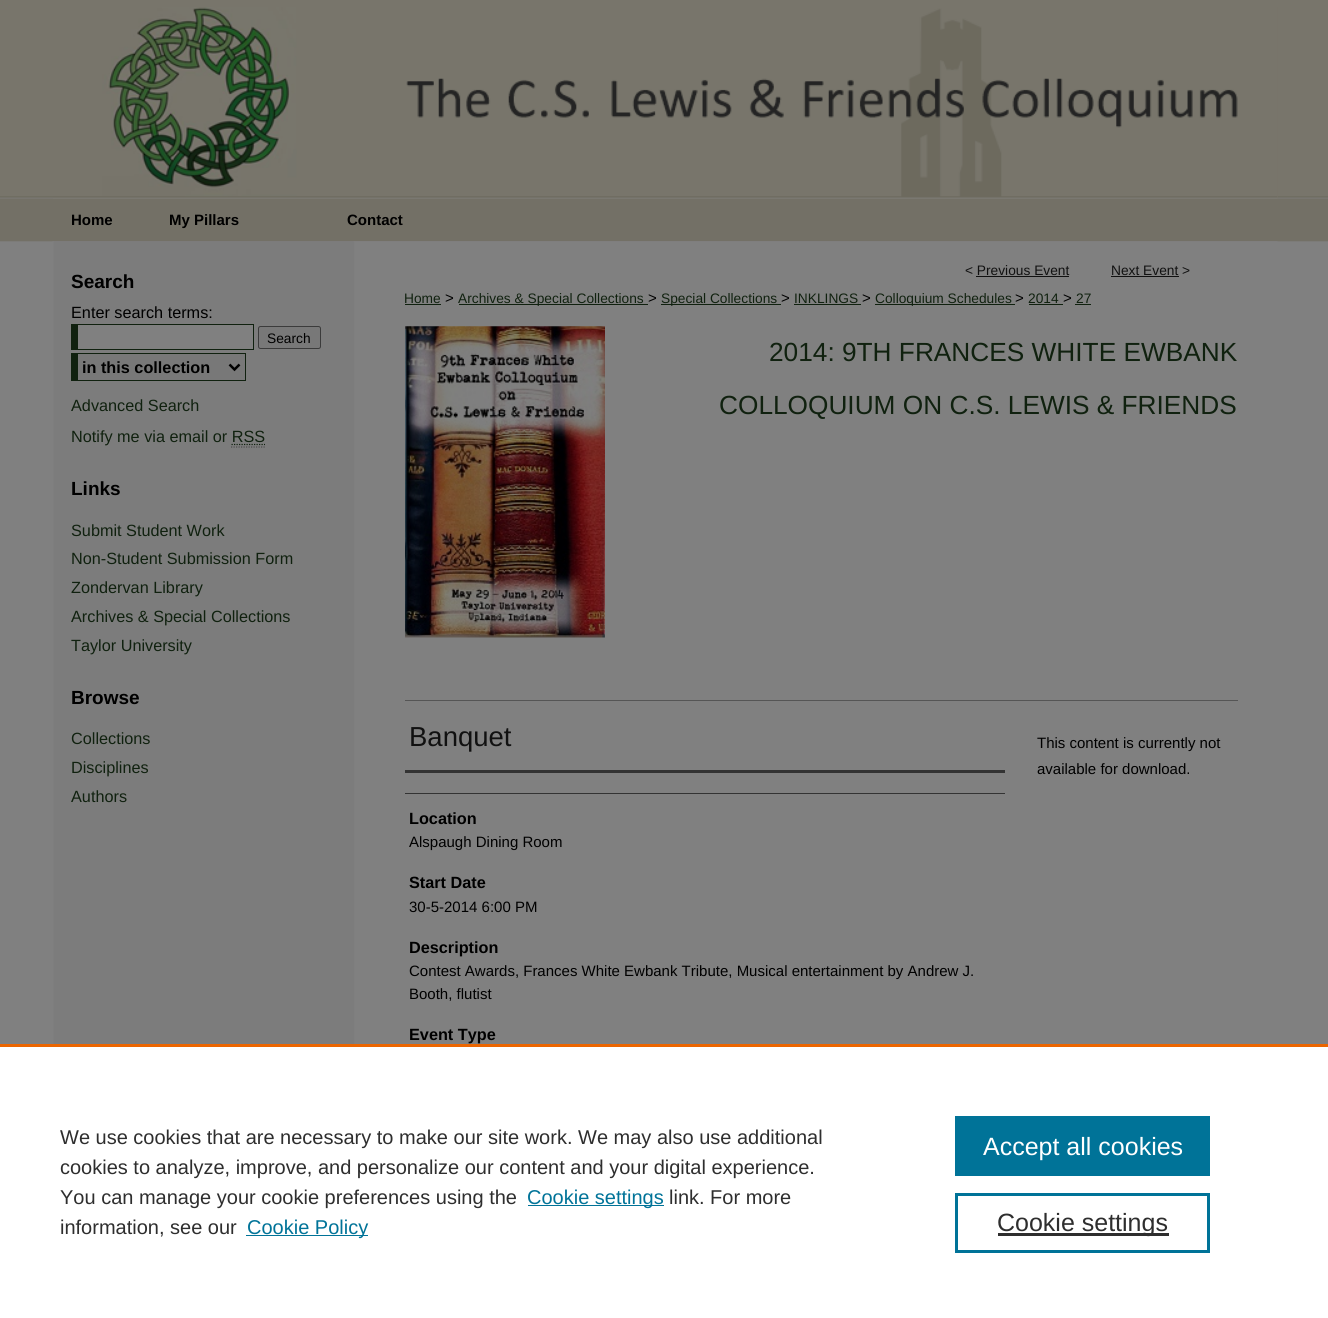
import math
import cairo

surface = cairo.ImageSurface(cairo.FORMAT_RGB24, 1328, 1318)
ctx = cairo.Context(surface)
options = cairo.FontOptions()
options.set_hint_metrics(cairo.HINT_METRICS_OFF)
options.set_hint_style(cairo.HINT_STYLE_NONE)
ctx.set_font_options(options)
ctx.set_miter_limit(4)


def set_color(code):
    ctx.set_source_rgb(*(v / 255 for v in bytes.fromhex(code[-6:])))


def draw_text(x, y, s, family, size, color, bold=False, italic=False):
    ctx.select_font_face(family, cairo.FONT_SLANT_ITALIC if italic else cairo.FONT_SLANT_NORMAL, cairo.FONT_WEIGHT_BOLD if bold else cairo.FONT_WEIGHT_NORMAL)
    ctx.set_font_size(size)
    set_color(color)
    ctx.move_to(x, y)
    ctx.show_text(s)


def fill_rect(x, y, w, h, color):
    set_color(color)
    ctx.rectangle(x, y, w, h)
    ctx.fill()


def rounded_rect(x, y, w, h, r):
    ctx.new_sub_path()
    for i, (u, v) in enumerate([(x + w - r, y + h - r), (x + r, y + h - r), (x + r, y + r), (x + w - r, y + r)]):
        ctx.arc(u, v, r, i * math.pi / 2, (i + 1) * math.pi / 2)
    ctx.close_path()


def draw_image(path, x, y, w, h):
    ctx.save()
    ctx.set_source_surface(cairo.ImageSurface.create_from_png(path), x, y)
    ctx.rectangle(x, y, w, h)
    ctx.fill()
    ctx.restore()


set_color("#808080")
ctx.paint()
draw_image("assets/img1.png", 0, 0, 1328, 242)
fill_rect(53, 196, 1225, 3, "#78756b")
draw_image("assets/img2.png", 53, 7, 1225, 192)
draw_text(71, 225, "Home", "Liberation Sans", 15, "#000000", bold=True)
draw_text(169, 225, "My Pillars", "Liberation Sans", 15, "#000000", bold=True)
draw_text(347, 225, "Contact", "Liberation Sans", 15, "#000000", bold=True)
draw_image("assets/img3.png", 52, 241, 1226, 803)
draw_text(71, 288, "Search", "Liberation Sans", 19, "#000000", bold=True)
draw_text(71, 318, "Enter search terms:", "Liberation Sans", 16.25, "#000000")
fill_rect(78, 325, 175, 24, "#808080")
fill_rect(71, 324, 183, 1, "#10210f")
fill_rect(253, 324, 1, 26, "#10210f")
fill_rect(71, 349, 183, 1, "#10210f")
fill_rect(71, 324, 7, 26, "#10210f")
set_color("#787878")
rounded_rect(258.5, 326.5, 62, 22, 2)
ctx.fill_preserve()
set_color("#3b3b3b")
ctx.set_line_width(1)
ctx.stroke()
draw_text(267, 343, "Search", "Liberation Sans", 13.75, "#000000")
fill_rect(78, 354, 167, 26, "#787878")
fill_rect(71, 353, 175, 1, "#10210f")
fill_rect(245, 353, 1, 28, "#10210f")
fill_rect(71, 380, 175, 1, "#10210f")
fill_rect(71, 353, 7, 28, "#10210f")
ctx.new_path()
ctx.move_to(229.5, 364.5)
ctx.line_to(234.5, 369.5)
ctx.line_to(239.5, 364.5)
set_color("#000000")
ctx.set_line_width(2.5)
ctx.stroke()
draw_text(82, 373, "in this collection", "Liberation Sans", 16.25, "#000000", bold=True)
draw_text(71, 411, "Advanced Search", "Liberation Sans", 16.25, "#10210f")
draw_text(71, 442, "Notify me via email or RSS", "Liberation Sans", 16.25, "#10210f")
ctx.new_path()
ctx.move_to(231.5, 444.5)
ctx.line_to(265, 444.5)
ctx.set_line_width(1.2)
ctx.set_dash([1.25, 1.25])
ctx.stroke()
ctx.new_path()
ctx.move_to(231, 447)
ctx.line_to(265, 447)
set_color("#4d4d4d")
ctx.stroke()
draw_text(71, 495, "Links", "Liberation Sans", 19, "#000000", bold=True)
draw_text(71, 536, "Submit Student Work", "Liberation Sans", 16.25, "#10210f")
draw_text(71, 564, "Non-Student Submission Form", "Liberation Sans", 16.25, "#10210f")
draw_text(71, 593, "Zondervan Library", "Liberation Sans", 16.25, "#10210f")
draw_text(71, 622, "Archives & Special Collections", "Liberation Sans", 16.25, "#10210f")
draw_text(71, 651, "Taylor University", "Liberation Sans", 16.25, "#10210f")
draw_text(71, 704, "Browse", "Liberation Sans", 19, "#000000", bold=True)
draw_text(71, 744, "Collections", "Liberation Sans", 16.25, "#10210f")
draw_text(71, 773, "Disciplines", "Liberation Sans", 16.25, "#10210f")
draw_text(71, 802, "Authors", "Liberation Sans", 16.25, "#10210f")
draw_text(965, 275, "< Previous Event", "Liberation Sans", 13.75, "#111111")
fill_rect(976, 276, 93, 1, "#111111")
draw_text(1111, 275, "Next Event >", "Liberation Sans", 13.75, "#111111")
fill_rect(1111, 276, 68, 1, "#111111")
draw_text(404, 303, "Home", "Liberation Sans", 13.75, "#10210f")
fill_rect(405, 304, 36, 1, "#10210f")
draw_text(445, 303, ">", "Liberation Sans", 15, "#000000")
fill_rect(459, 304, 189, 1, "#10210f")
draw_text(458, 303, "Archives & Special Collections", "Liberation Sans", 13.75, "#10210f")
draw_text(648, 303, ">", "Liberation Sans", 15, "#000000")
fill_rect(661, 304, 120, 1, "#10210f")
draw_text(661, 303, "Special Collections", "Liberation Sans", 13.75, "#10210f")
draw_text(781, 303, ">", "Liberation Sans", 15, "#000000")
draw_text(794, 303, "INKLINGS", "Liberation Sans", 13.75, "#10210f")
fill_rect(794, 304, 67, 1, "#10210f")
draw_text(862, 303, ">", "Liberation Sans", 15, "#000000")
fill_rect(875, 304, 140, 1, "#10210f")
draw_text(875, 303, "Colloquium Schedules", "Liberation Sans", 13.75, "#10210f")
draw_text(1015, 303, ">", "Liberation Sans", 15, "#000000")
draw_text(1028, 303, "2014", "Liberation Sans", 13.75, "#10210f")
fill_rect(1029, 304, 34, 1, "#10210f")
draw_text(1063, 303, ">", "Liberation Sans", 15, "#000000")
draw_text(1076, 303, "27", "Liberation Sans", 13.75, "#10210f")
fill_rect(1075, 304, 16, 1, "#10210f")
draw_image("assets/img4.png", 405, 326, 200, 312)
draw_text(769, 361, "2014: 9TH FRANCES WHITE EWBANK", "Liberation Sans", 26.25, "#10210f")
draw_text(719, 414, "COLLOQUIUM ON C.S. LEWIS & FRIENDS", "Liberation Sans", 26.25, "#10210f")
fill_rect(405, 700, 833, 1, "#555555")
draw_text(409, 746, "Banquet", "Liberation Sans", 27.5, "#111111")
fill_rect(405, 770, 600, 3, "#333333")
fill_rect(405, 793, 600, 1, "#333333")
draw_text(409, 824, "Location", "Liberation Sans", 16.25, "#000000", bold=True)
draw_text(409, 847, "Alspaugh Dining Room", "Liberation Sans", 15, "#000000")
draw_text(409, 888, "Start Date", "Liberation Sans", 16.25, "#000000", bold=True)
draw_text(409, 912, "30-5-2014 6:00 PM", "Liberation Sans", 15, "#000000")
draw_text(409, 953, "Description", "Liberation Sans", 16.25, "#000000", bold=True)
draw_text(409, 976, "Contest Awards, Frances White Ewbank Tribute, Musical entertainment by Andrew J.", "Liberation Sans", 15, "#000000")
draw_text(409, 999, "Booth, flutist", "Liberation Sans", 15, "#000000")
draw_text(409, 1040, "Event Type", "Liberation Sans", 16.25, "#000000", bold=True)
draw_text(1037, 748, "This content is currently not", "Liberation Sans", 15, "#000000")
draw_text(1037, 774, "available for download.", "Liberation Sans", 15, "#000000")
fill_rect(0, 1047, 1328, 271, "#ffffff")
fill_rect(0, 1044, 1328, 3, "#eb6500")
draw_text(60, 1144, "We use cookies that are necessary to make our site work. We may also use additional", "Liberation Sans", 20, "#2e2e2e")
draw_text(60, 1174, "cookies to analyze, improve, and personalize our content and your digital experience.", "Liberation Sans", 20, "#2e2e2e")
draw_text(60, 1204, "You can manage your cookie preferences using the", "Liberation Sans", 20, "#2e2e2e")
fill_rect(528, 1205, 136, 1, "#007398")
draw_text(527, 1204, "Cookie settings", "Liberation Sans", 20, "#007398")
draw_text(669, 1204, "link. For more", "Liberation Sans", 20, "#2e2e2e")
draw_text(60, 1234, "information, see our", "Liberation Sans", 20, "#2e2e2e")
fill_rect(246, 1235, 122, 1, "#007398")
draw_text(247, 1234, "Cookie Policy", "Liberation Sans", 20, "#007398")
fill_rect(955, 1116, 255, 60, "#007398")
draw_text(983, 1155, "Accept all cookies", "Liberation Sans", 25, "#ffffff")
ctx.rectangle(956.5, 1194.5, 252, 57)
set_color("#007398")
ctx.set_line_width(3)
ctx.set_dash([])
ctx.stroke()
fill_rect(998, 1233, 171, 3, "#2e2e2e")
draw_text(997, 1231, "Cookie settings", "Liberation Sans", 25, "#2e2e2e")
surface.write_to_png("output.png")
